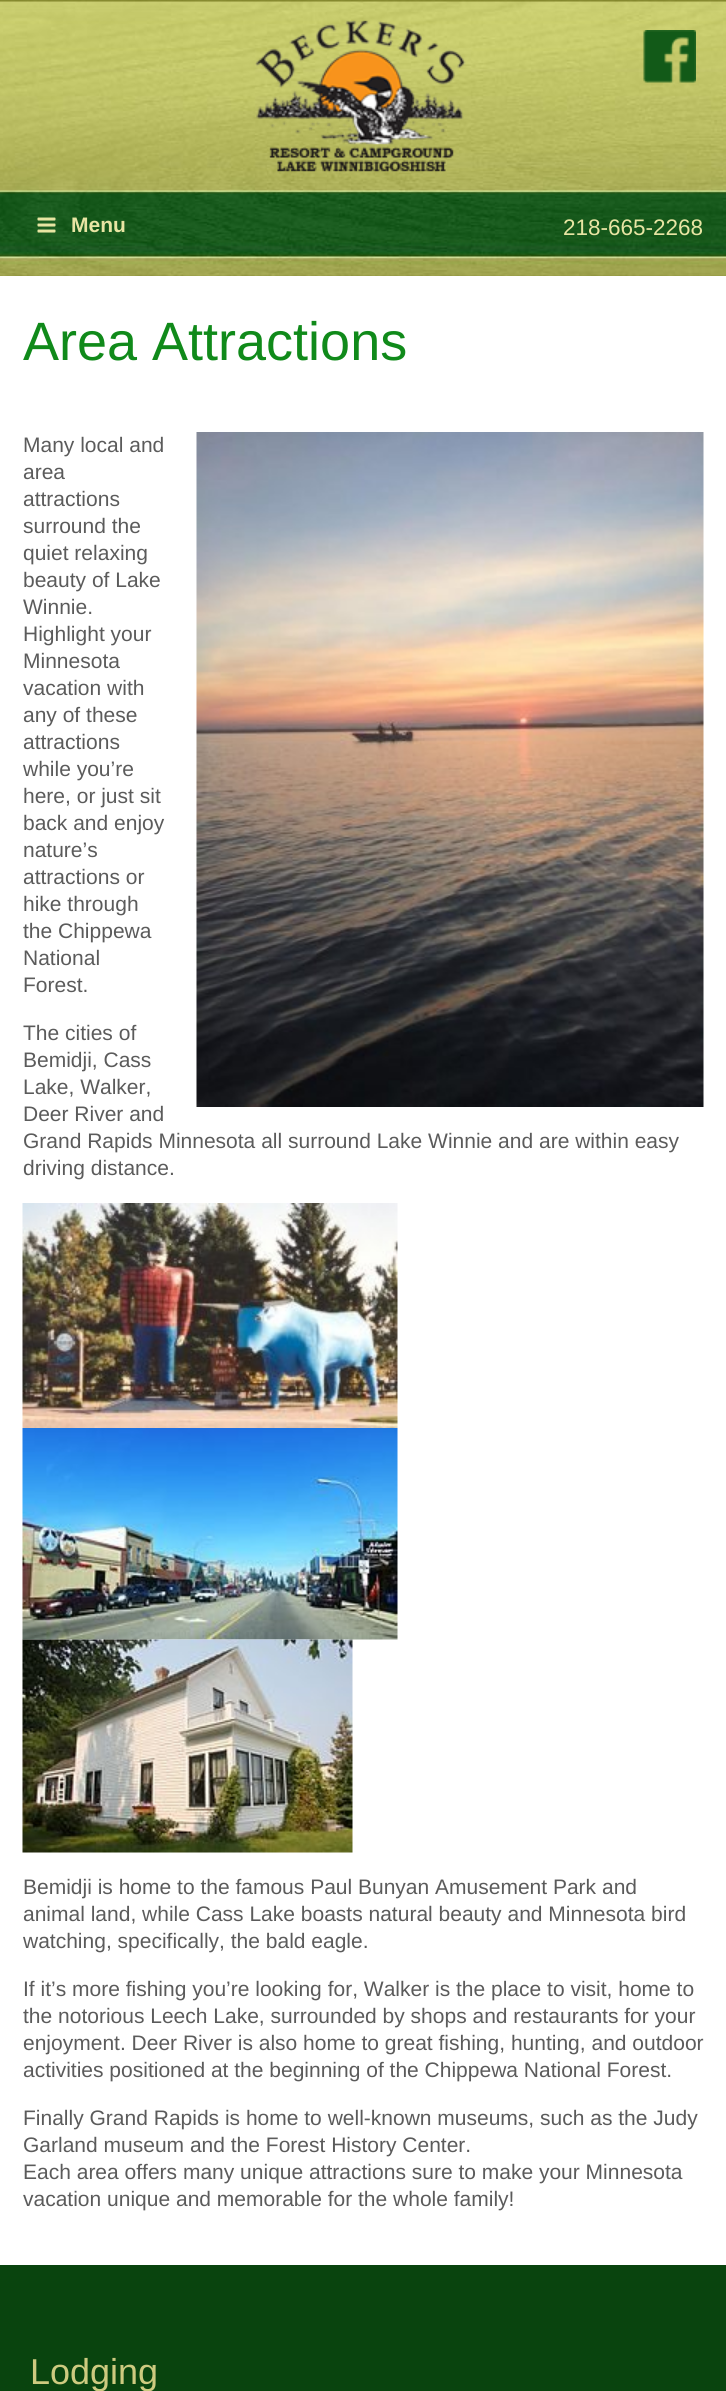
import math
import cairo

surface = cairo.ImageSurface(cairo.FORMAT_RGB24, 726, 2391)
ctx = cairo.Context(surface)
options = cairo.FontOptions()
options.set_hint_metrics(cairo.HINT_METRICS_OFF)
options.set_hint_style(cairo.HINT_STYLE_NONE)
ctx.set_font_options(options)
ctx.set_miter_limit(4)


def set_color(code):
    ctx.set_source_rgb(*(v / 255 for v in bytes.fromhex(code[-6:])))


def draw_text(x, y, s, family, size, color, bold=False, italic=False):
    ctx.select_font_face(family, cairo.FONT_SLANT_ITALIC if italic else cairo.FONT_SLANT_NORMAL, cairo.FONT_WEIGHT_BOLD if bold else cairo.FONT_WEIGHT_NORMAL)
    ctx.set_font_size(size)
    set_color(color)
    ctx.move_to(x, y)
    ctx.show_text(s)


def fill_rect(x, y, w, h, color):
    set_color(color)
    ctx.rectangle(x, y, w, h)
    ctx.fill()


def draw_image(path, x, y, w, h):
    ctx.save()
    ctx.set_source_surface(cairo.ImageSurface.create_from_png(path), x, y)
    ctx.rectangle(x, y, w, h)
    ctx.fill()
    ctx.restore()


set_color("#09440e")
ctx.paint()
draw_image("assets/img1.png", 0, 0, 726, 276)
draw_image("assets/img2.png", 37, 217, 19, 16)
draw_text(71, 232, "Menu", "Liberation Sans", 21, "#e8e5a3", bold=True)
draw_image("assets/img3.png", 255, 20, 211, 152)
draw_image("assets/img4.png", 643, 30, 53, 53)
draw_text(563, 235, "218-665-2268", "Liberation Sans", 22.5, "#e8e5a3")
fill_rect(0, 276, 726, 1989, "#ffffff")
draw_text(23, 360, "Area Attractions", "Liberation Sans", 54, "#108a1a")
draw_text(23, 452, "Many local and", "Liberation Sans", 21, "#5b5b5b")
draw_image("assets/img5.png", 196, 432, 508, 675)
draw_text(23, 479, "area", "Liberation Sans", 21, "#5b5b5b")
draw_text(23, 506, "attractions", "Liberation Sans", 21, "#5b5b5b")
draw_text(23, 533, "surround the", "Liberation Sans", 21, "#5b5b5b")
draw_text(23, 560, "quiet relaxing", "Liberation Sans", 21, "#5b5b5b")
draw_text(23, 587, "beauty of Lake", "Liberation Sans", 21, "#5b5b5b")
draw_text(23, 614, "Winnie.", "Liberation Sans", 21, "#5b5b5b")
draw_text(23, 641, "Highlight your", "Liberation Sans", 21, "#5b5b5b")
draw_text(23, 668, "Minnesota", "Liberation Sans", 21, "#5b5b5b")
draw_text(23, 695, "vacation with", "Liberation Sans", 21, "#5b5b5b")
draw_text(23, 722, "any of these", "Liberation Sans", 21, "#5b5b5b")
draw_text(23, 749, "attractions", "Liberation Sans", 21, "#5b5b5b")
draw_text(23, 776, "while you’re", "Liberation Sans", 21, "#5b5b5b")
draw_text(23, 803, "here, or just sit", "Liberation Sans", 21, "#5b5b5b")
draw_text(23, 830, "back and enjoy", "Liberation Sans", 21, "#5b5b5b")
draw_text(23, 857, "nature’s", "Liberation Sans", 21, "#5b5b5b")
draw_text(23, 884, "attractions or", "Liberation Sans", 21, "#5b5b5b")
draw_text(23, 911, "hike through", "Liberation Sans", 21, "#5b5b5b")
draw_text(23, 938, "the Chippewa", "Liberation Sans", 21, "#5b5b5b")
draw_text(23, 965, "National", "Liberation Sans", 21, "#5b5b5b")
draw_text(23, 992, "Forest.", "Liberation Sans", 21, "#5b5b5b")
draw_text(23, 1040, "The cities of", "Liberation Sans", 21, "#5b5b5b")
draw_text(23, 1067, "Bemidji, Cass", "Liberation Sans", 21, "#5b5b5b")
draw_text(23, 1094, "Lake, Walker,", "Liberation Sans", 21, "#5b5b5b")
draw_text(23, 1121, "Deer River and", "Liberation Sans", 21, "#5b5b5b")
draw_text(23, 1148, "Grand Rapids Minnesota all surround Lake Winnie and are within easy", "Liberation Sans", 21, "#5b5b5b")
draw_text(23, 1175, "driving distance.", "Liberation Sans", 21, "#5b5b5b")
draw_image("assets/img6.png", 22, 1203, 376, 225)
draw_image("assets/img7.png", 22, 1428, 376, 212)
draw_image("assets/img8.png", 22, 1639, 331, 214)
draw_text(23, 1894, "Bemidji is home to the famous Paul Bunyan Amusement Park and", "Liberation Sans", 21, "#5b5b5b")
draw_text(23, 1921, "animal land, while Cass Lake boasts natural beauty and Minnesota bird", "Liberation Sans", 21, "#5b5b5b")
draw_text(23, 1948, "watching, specifically, the bald eagle.", "Liberation Sans", 21, "#5b5b5b")
draw_text(23, 1996, "If it’s more fishing you’re looking for, Walker is the place to visit, home to", "Liberation Sans", 21, "#5b5b5b")
draw_text(23, 2023, "the notorious Leech Lake, surrounded by shops and restaurants for your", "Liberation Sans", 21, "#5b5b5b")
draw_text(23, 2050, "enjoyment. Deer River is also home to great fishing, hunting, and outdoor", "Liberation Sans", 21, "#5b5b5b")
draw_text(23, 2077, "activities positioned at the beginning of the Chippewa National Forest.", "Liberation Sans", 21, "#5b5b5b")
draw_text(23, 2125, "Finally Grand Rapids is home to well-known museums, such as the Judy", "Liberation Sans", 21, "#5b5b5b")
draw_text(23, 2152, "Garland museum and the Forest History Center.", "Liberation Sans", 21, "#5b5b5b")
draw_text(23, 2179, "Each area offers many unique attractions sure to make your Minnesota", "Liberation Sans", 21, "#5b5b5b")
draw_text(23, 2206, "vacation unique and memorable for the whole family!", "Liberation Sans", 21, "#5b5b5b")
draw_text(30, 2384, "Lodging", "Liberation Sans", 36, "#cdca7f")
surface.write_to_png("output.png")
